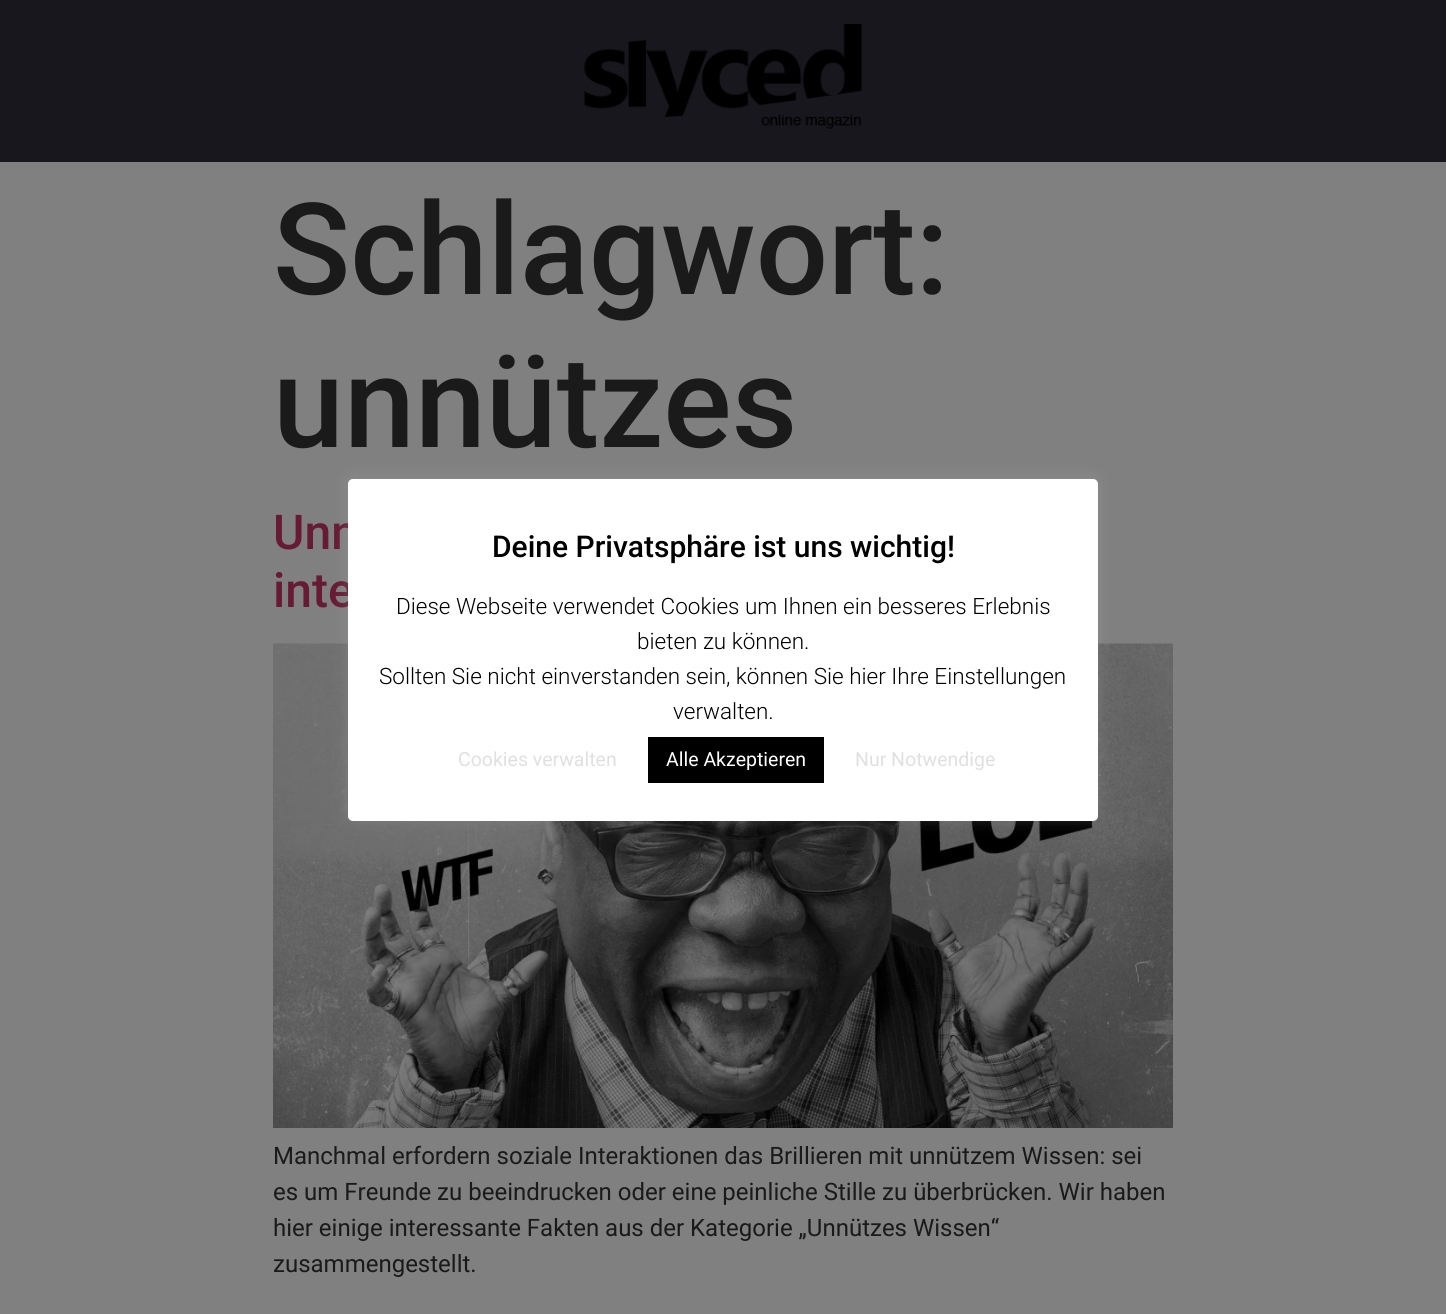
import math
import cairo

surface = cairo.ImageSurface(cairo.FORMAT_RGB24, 1446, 1314)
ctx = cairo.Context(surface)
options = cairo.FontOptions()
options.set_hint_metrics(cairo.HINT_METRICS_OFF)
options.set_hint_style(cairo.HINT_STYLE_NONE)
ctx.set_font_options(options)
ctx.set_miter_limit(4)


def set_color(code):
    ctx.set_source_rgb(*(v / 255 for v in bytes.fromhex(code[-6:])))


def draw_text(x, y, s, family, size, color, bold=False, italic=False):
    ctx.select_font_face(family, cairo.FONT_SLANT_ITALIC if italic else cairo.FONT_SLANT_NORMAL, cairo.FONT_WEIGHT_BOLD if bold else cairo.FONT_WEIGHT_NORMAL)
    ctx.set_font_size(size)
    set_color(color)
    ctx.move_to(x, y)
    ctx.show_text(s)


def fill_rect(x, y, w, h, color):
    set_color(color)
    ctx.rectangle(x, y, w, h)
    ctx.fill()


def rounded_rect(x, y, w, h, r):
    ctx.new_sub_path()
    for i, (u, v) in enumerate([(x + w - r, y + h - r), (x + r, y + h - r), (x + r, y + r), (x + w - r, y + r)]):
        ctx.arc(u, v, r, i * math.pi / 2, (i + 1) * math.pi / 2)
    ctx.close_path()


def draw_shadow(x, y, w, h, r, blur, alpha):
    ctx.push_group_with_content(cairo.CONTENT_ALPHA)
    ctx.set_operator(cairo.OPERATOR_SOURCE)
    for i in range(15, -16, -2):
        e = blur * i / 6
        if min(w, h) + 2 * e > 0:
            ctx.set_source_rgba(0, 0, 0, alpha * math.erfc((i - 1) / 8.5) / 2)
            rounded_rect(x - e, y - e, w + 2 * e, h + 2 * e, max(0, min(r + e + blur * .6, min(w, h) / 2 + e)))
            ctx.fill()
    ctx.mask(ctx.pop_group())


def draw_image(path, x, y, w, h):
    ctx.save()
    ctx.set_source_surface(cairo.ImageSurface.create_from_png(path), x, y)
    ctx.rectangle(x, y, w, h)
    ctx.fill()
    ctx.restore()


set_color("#808080")
ctx.paint()
fill_rect(0, 0, 1446, 162, "#17171d")
draw_image("assets/img1.png", 584, 24, 278, 105)
draw_text(273, 294, "Schlagwort:", "Roboto Medium", 127.5, "#1a1a1a")
draw_text(273, 447, "unnützes", "Roboto Medium", 127.5, "#1a1a1a")
draw_text(273, 549, "Unn", "Roboto Medium", 48, "#661a33")
draw_text(273, 607, "inte", "Roboto Medium", 48, "#661a33")
draw_image("assets/img2.png", 273, 643, 900, 485)
draw_text(273, 1164, "Manchmal erfordern soziale Interaktionen das Brillieren mit unnützem Wissen: sei", "Roboto", 24, "#1a1a1a")
draw_text(273, 1200, "es um Freunde zu beeindrucken oder eine peinliche Stille zu überbrücken. Wir haben", "Roboto", 24, "#1a1a1a")
draw_text(273, 1236, "hier einige interessante Fakten aus der Kategorie „Unnützes Wissen“", "Roboto", 24, "#1a1a1a")
draw_text(273, 1272, "zusammengestellt.", "Roboto", 24, "#1a1a1a")
set_color("#acabab")
draw_shadow(348, 477, 750, 342, 5, 7.5, 0.3)
set_color("#ffffff")
rounded_rect(348, 479, 750, 342, 5)
ctx.fill()
draw_text(492, 557, "Deine Privatsphäre ist uns wichtig!", "Roboto Medium", 30, "#000000")
draw_text(396, 614, "Diese Webseite verwendet Cookies um Ihnen ein besseres Erlebnis", "Roboto Light", 22.5, "#000000")
draw_text(637, 649, "bieten zu können.", "Roboto Light", 22.5, "#000000")
draw_text(379, 684, "Sollten Sie nicht einverstanden sein, können Sie hier Ihre Einstellungen", "Roboto Light", 22.5, "#000000")
draw_text(673, 719, "verwalten.", "Roboto Light", 22.5, "#000000")
draw_text(458, 766, "Cookies verwalten", "Roboto", 19.5, "#e0e0e0")
fill_rect(648, 737, 176, 46, "#000000")
draw_text(666, 766, "Alle Akzeptieren", "Roboto", 19.5, "#ffffff")
draw_text(855, 766, "Nur Notwendige", "Roboto", 19.5, "#e0e0e0")
surface.write_to_png("output.png")
